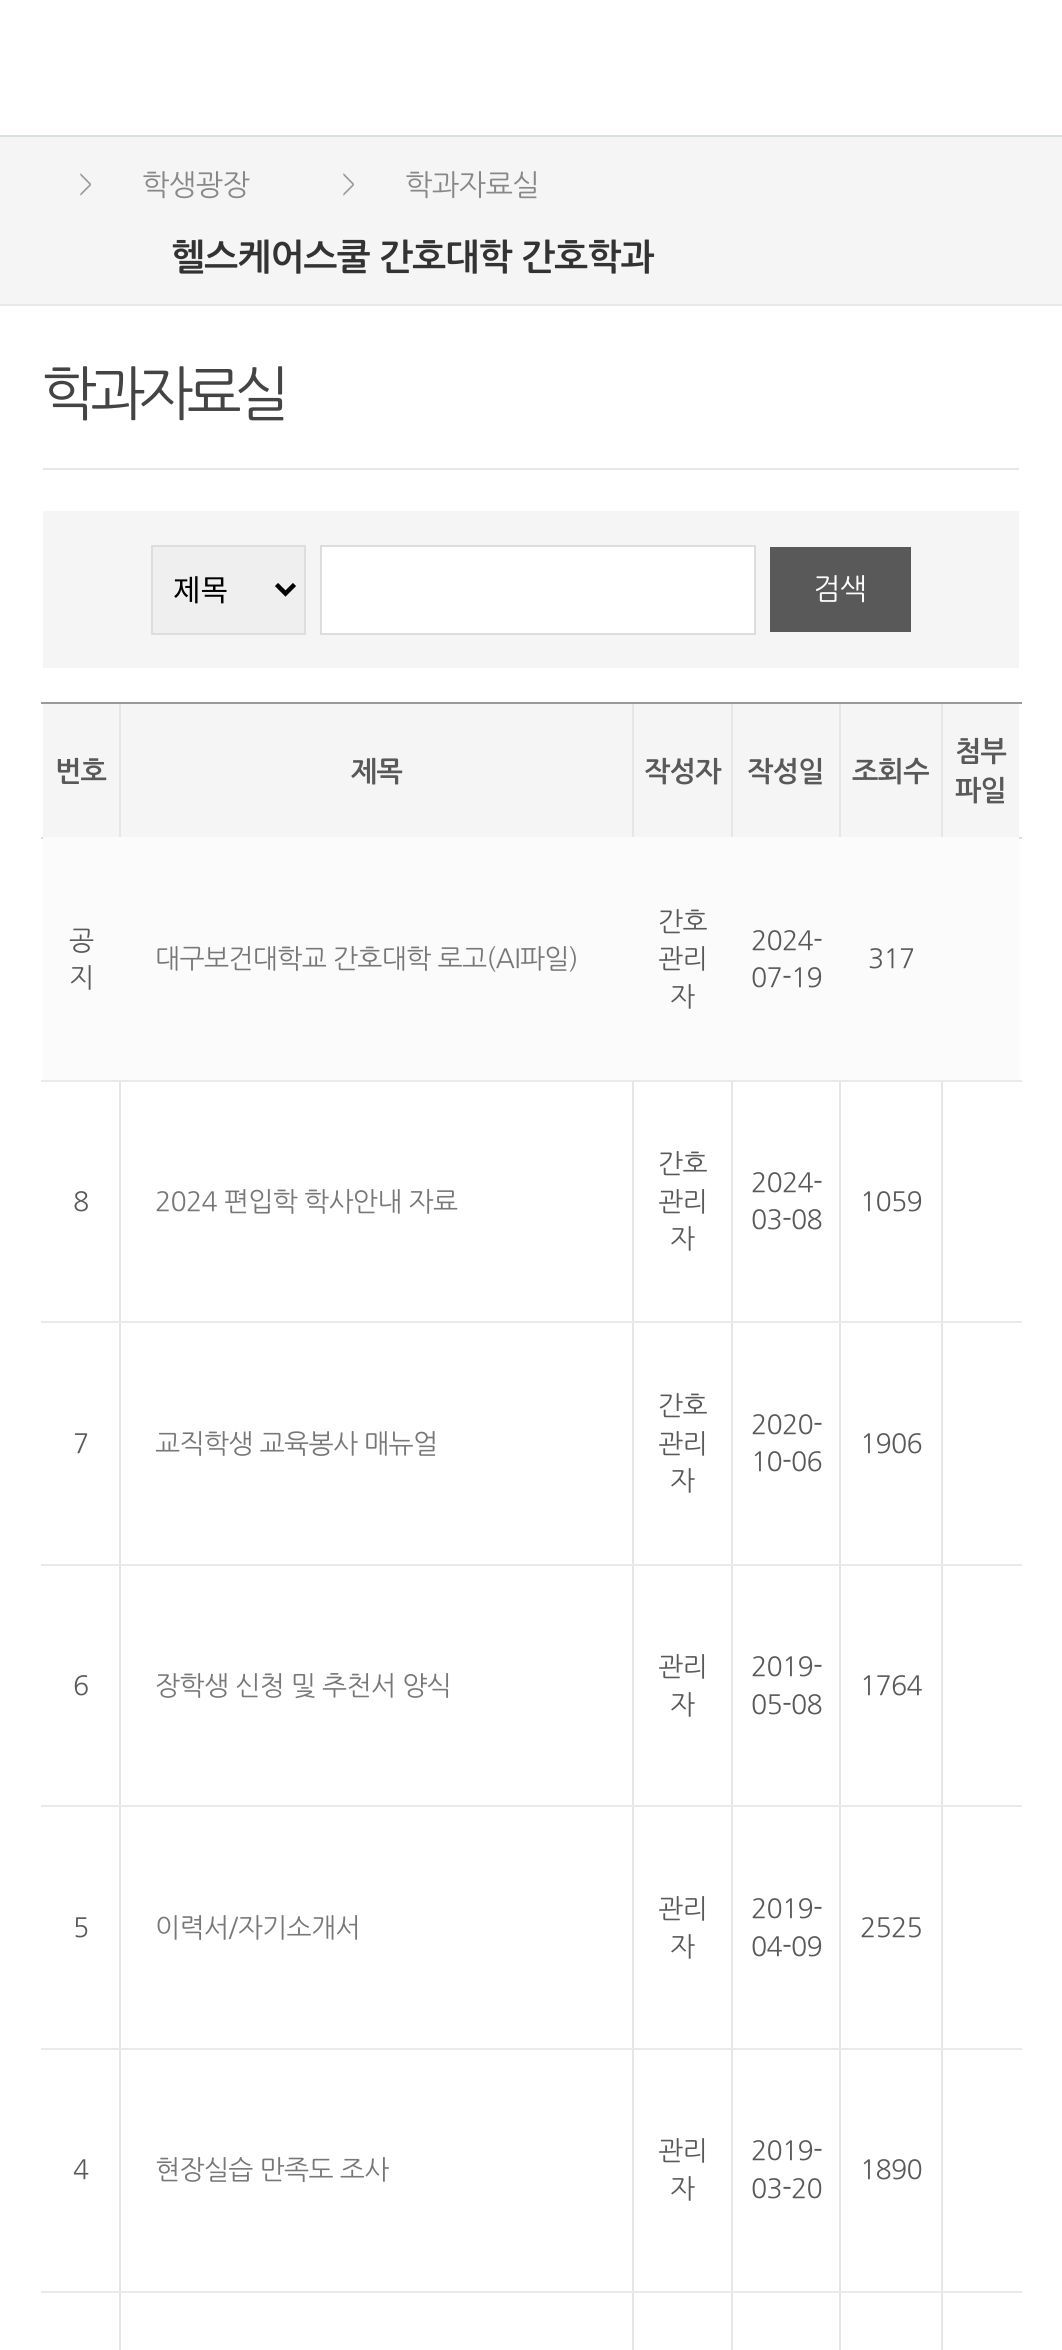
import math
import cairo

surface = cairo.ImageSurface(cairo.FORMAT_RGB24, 1062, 2350)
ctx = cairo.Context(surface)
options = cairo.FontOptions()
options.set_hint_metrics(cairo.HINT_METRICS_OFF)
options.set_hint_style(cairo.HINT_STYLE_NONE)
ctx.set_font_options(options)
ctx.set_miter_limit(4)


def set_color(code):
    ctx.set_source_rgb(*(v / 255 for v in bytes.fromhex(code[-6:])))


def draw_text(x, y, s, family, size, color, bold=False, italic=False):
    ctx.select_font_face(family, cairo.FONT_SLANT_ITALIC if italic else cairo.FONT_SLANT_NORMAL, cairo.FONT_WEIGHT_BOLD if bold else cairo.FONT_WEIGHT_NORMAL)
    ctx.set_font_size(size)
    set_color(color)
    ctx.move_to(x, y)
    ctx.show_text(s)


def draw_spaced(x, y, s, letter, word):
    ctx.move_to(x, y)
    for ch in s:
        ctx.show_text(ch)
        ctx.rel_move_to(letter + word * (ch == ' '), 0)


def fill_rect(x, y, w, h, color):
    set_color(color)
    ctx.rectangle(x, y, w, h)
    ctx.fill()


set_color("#ffffff")
ctx.paint()
fill_rect(0, 137, 1062, 167, "#f5f5f5")
fill_rect(0, 304, 1062, 2, "#e8e8e8")
ctx.select_font_face("NanumGothic")
ctx.set_font_size(25)
set_color("#999999")
draw_spaced(79, 192, ">", -0.7, 0)
ctx.set_font_size(29.25)
set_color("#888888")
draw_spaced(142, 194, "학생광장", -0.7, 0)
ctx.set_font_size(25)
set_color("#999999")
draw_spaced(342, 192, ">", -0.7, 0)
ctx.set_font_size(29.25)
set_color("#888888")
draw_spaced(405, 194, "학과자료실", -0.7, 0)
fill_rect(0, 135, 1062, 2, "#d9dee1")
ctx.select_font_face("NanumGothic", cairo.FONT_SLANT_NORMAL, cairo.FONT_WEIGHT_BOLD)
ctx.set_font_size(36)
set_color("#333333")
draw_spaced(171, 268, "헬스케어스쿨 간호대학 간호학과", -0.7, 0)
fill_rect(43, 468, 976, 2, "#e7e7e7")
ctx.select_font_face("NanumGothic")
ctx.set_font_size(58.5)
set_color("#444444")
draw_spaced(42, 412, "학과자료실", -6.75, 0)
fill_rect(43, 511, 976, 157, "#f5f5f5")
set_color("#efefef")
ctx.rectangle(152, 546, 153, 88)
ctx.fill_preserve()
set_color("#dddddd")
ctx.stroke()
ctx.new_path()
ctx.move_to(276.5, 584.5)
ctx.line_to(285.5, 593.5)
ctx.line_to(294.5, 584.5)
set_color("#000000")
ctx.set_line_width(4.5)
ctx.stroke()
draw_text(173, 601, "제목", "Noto Sans KR", 30, "#000000")
set_color("#ffffff")
ctx.rectangle(321, 546, 434, 88)
ctx.fill_preserve()
set_color("#dddddd")
ctx.set_line_width(2)
ctx.stroke()
fill_rect(770, 547, 141, 85, "#595959")
ctx.select_font_face("NanumGothic")
ctx.set_font_size(29.25)
set_color("#ffffff")
draw_spaced(813, 598, "검색", -1, 0)
fill_rect(43, 704, 688, 133, "#f5f5f5")
fill_rect(941, 702, 81, 2, "#999999")
fill_rect(941, 702, 2, 137, "#e6e6e6")
fill_rect(839, 702, 104, 2, "#999999")
fill_rect(733, 704, 208, 133, "#f5f5f5")
fill_rect(839, 702, 2, 137, "#e6e6e6")
fill_rect(731, 702, 111, 2, "#999999")
fill_rect(731, 702, 2, 137, "#e6e6e6")
fill_rect(632, 702, 102, 2, "#999999")
fill_rect(632, 702, 2, 137, "#e6e6e6")
fill_rect(119, 702, 516, 2, "#999999")
fill_rect(119, 702, 2, 137, "#e6e6e6")
fill_rect(41, 702, 81, 2, "#999999")
fill_rect(41, 837, 2, 2, "#dddddd")
ctx.select_font_face("NanumGothic", cairo.FONT_SLANT_NORMAL, cairo.FONT_WEIGHT_BOLD)
ctx.set_font_size(28)
set_color("#595959")
draw_spaced(55, 780, "번호", -0.7, 0)
draw_spaced(351, 780, "제목", -0.7, 0)
draw_spaced(644, 780, "작성자", -0.7, 0)
draw_spaced(747, 780, "작성일", -0.7, 0)
draw_spaced(852, 780, "조회수", -0.7, 0)
fill_rect(943, 704, 76, 133, "#f5f5f5")
fill_rect(1019, 837, 3, 2, "#dddddd")
set_color("#595959")
draw_spaced(955, 760, "첨부", -0.7, 0)
draw_spaced(955, 799, "파일", -0.7, 0)
fill_rect(43, 837, 976, 243, "#fbfbfb")
ctx.select_font_face("NanumGothic")
ctx.set_font_size(26.75)
set_color("#595959")
draw_spaced(69, 949, "공", -0.7, 0)
draw_spaced(69, 986, "지", -0.7, 0)
set_color("#777777")
draw_spaced(155, 967, "대구보건대학교 간호대학 로고(AI파일)", -0.7, 0)
set_color("#595959")
draw_spaced(658, 930, "간호", -0.7, 0)
draw_spaced(658, 967, "관리", -0.7, 0)
draw_spaced(670, 1005, "자", -0.7, 0)
draw_spaced(751, 949, "2024-", -0.7, 0)
draw_spaced(751, 986, "07-19", -0.7, 0)
draw_spaced(868, 967, "317", -0.7, 0)
fill_rect(941, 2291, 2, 59, "#e6e6e6")
fill_rect(941, 2291, 81, 2, "#eaeaea")
fill_rect(941, 2048, 2, 245, "#e6e6e6")
fill_rect(941, 2048, 81, 2, "#eaeaea")
fill_rect(941, 1805, 2, 245, "#e6e6e6")
fill_rect(941, 1805, 81, 2, "#eaeaea")
fill_rect(941, 1564, 2, 243, "#e6e6e6")
fill_rect(941, 1564, 81, 2, "#eaeaea")
fill_rect(941, 1321, 2, 245, "#e6e6e6")
fill_rect(941, 1321, 81, 2, "#eaeaea")
fill_rect(941, 1080, 2, 243, "#e6e6e6")
fill_rect(839, 2291, 2, 59, "#e6e6e6")
fill_rect(839, 2291, 104, 2, "#eaeaea")
fill_rect(839, 2048, 2, 245, "#e6e6e6")
fill_rect(839, 2048, 104, 2, "#eaeaea")
fill_rect(839, 1805, 2, 245, "#e6e6e6")
fill_rect(839, 1805, 104, 2, "#eaeaea")
fill_rect(839, 1564, 2, 243, "#e6e6e6")
fill_rect(839, 1564, 104, 2, "#eaeaea")
fill_rect(839, 1321, 2, 245, "#e6e6e6")
fill_rect(839, 1321, 104, 2, "#eaeaea")
fill_rect(839, 1080, 2, 243, "#e6e6e6")
fill_rect(731, 2291, 2, 59, "#e6e6e6")
fill_rect(731, 2291, 111, 2, "#eaeaea")
fill_rect(731, 2048, 2, 245, "#e6e6e6")
fill_rect(731, 2048, 111, 2, "#eaeaea")
fill_rect(731, 1805, 2, 245, "#e6e6e6")
fill_rect(731, 1805, 111, 2, "#eaeaea")
fill_rect(731, 1564, 2, 243, "#e6e6e6")
fill_rect(731, 1564, 111, 2, "#eaeaea")
fill_rect(731, 1321, 2, 245, "#e6e6e6")
fill_rect(731, 1321, 111, 2, "#eaeaea")
fill_rect(731, 1080, 2, 243, "#e6e6e6")
fill_rect(632, 2291, 2, 59, "#e6e6e6")
fill_rect(632, 2291, 102, 2, "#eaeaea")
fill_rect(632, 2048, 2, 245, "#e6e6e6")
fill_rect(632, 2048, 102, 2, "#eaeaea")
fill_rect(632, 1805, 2, 245, "#e6e6e6")
fill_rect(632, 1805, 102, 2, "#eaeaea")
fill_rect(632, 1564, 2, 243, "#e6e6e6")
fill_rect(632, 1564, 102, 2, "#eaeaea")
fill_rect(632, 1321, 2, 245, "#e6e6e6")
fill_rect(632, 1321, 102, 2, "#eaeaea")
fill_rect(632, 1080, 2, 243, "#e6e6e6")
fill_rect(119, 2291, 2, 59, "#e6e6e6")
fill_rect(119, 2291, 516, 2, "#eaeaea")
fill_rect(119, 2048, 2, 245, "#e6e6e6")
fill_rect(119, 2048, 516, 2, "#eaeaea")
fill_rect(119, 1805, 2, 245, "#e6e6e6")
fill_rect(119, 1805, 516, 2, "#eaeaea")
fill_rect(119, 1564, 2, 243, "#e6e6e6")
fill_rect(119, 1564, 516, 2, "#eaeaea")
fill_rect(119, 1321, 2, 245, "#e6e6e6")
fill_rect(119, 1321, 516, 2, "#eaeaea")
fill_rect(119, 1080, 2, 243, "#e6e6e6")
fill_rect(41, 1080, 981, 2, "#eaeaea")
fill_rect(41, 1321, 81, 2, "#eaeaea")
set_color("#595959")
draw_spaced(73, 1210, "8", -0.7, 0)
set_color("#777777")
draw_spaced(155, 1210, "2024 편입학 학사안내 자료", -0.7, 0)
set_color("#595959")
draw_spaced(658, 1172, "간호", -0.7, 0)
draw_spaced(658, 1210, "관리", -0.7, 0)
draw_spaced(670, 1247, "자", -0.7, 0)
draw_spaced(751, 1191, "2024-", -0.7, 0)
draw_spaced(751, 1228, "03-08", -0.7, 0)
draw_spaced(860, 1210, "1059", -0.7, 0)
fill_rect(41, 1564, 81, 2, "#eaeaea")
set_color("#595959")
draw_spaced(73, 1452, "7", -0.7, 0)
set_color("#777777")
draw_spaced(155, 1452, "교직학생 교육봉사 매뉴얼", -0.7, 0)
set_color("#595959")
draw_spaced(658, 1414, "간호", -0.7, 0)
draw_spaced(658, 1452, "관리", -0.7, 0)
draw_spaced(670, 1489, "자", -0.7, 0)
draw_spaced(751, 1433, "2020-", -0.7, 0)
draw_spaced(751, 1470, "10-06", -0.7, 0)
draw_spaced(860, 1452, "1906", -0.7, 0)
fill_rect(41, 1805, 81, 2, "#eaeaea")
set_color("#595959")
draw_spaced(73, 1694, "6", -0.7, 0)
set_color("#777777")
draw_spaced(155, 1694, "장학생 신청 및 추천서 양식", -0.7, 0)
set_color("#595959")
draw_spaced(658, 1675, "관리", -0.7, 0)
draw_spaced(670, 1713, "자", -0.7, 0)
draw_spaced(751, 1675, "2019-", -0.7, 0)
draw_spaced(751, 1713, "05-08", -0.7, 0)
draw_spaced(860, 1694, "1764", -0.7, 0)
fill_rect(41, 2048, 81, 2, "#eaeaea")
set_color("#595959")
draw_spaced(73, 1936, "5", -0.7, 0)
set_color("#777777")
draw_spaced(155, 1936, "이력서/자기소개서", -0.7, 0)
set_color("#595959")
draw_spaced(658, 1917, "관리", -0.7, 0)
draw_spaced(670, 1955, "자", -0.7, 0)
draw_spaced(751, 1917, "2019-", -0.7, 0)
draw_spaced(751, 1955, "04-09", -0.7, 0)
draw_spaced(860, 1936, "2525", -0.7, 0)
fill_rect(41, 2291, 81, 2, "#eaeaea")
set_color("#595959")
draw_spaced(73, 2178, "4", -0.7, 0)
set_color("#777777")
draw_spaced(155, 2178, "현장실습 만족도 조사", -0.7, 0)
set_color("#595959")
draw_spaced(658, 2159, "관리", -0.7, 0)
draw_spaced(670, 2197, "자", -0.7, 0)
draw_spaced(751, 2159, "2019-", -0.7, 0)
draw_spaced(751, 2197, "03-20", -0.7, 0)
draw_spaced(860, 2178, "1890", -0.7, 0)
surface.write_to_png("output.png")
